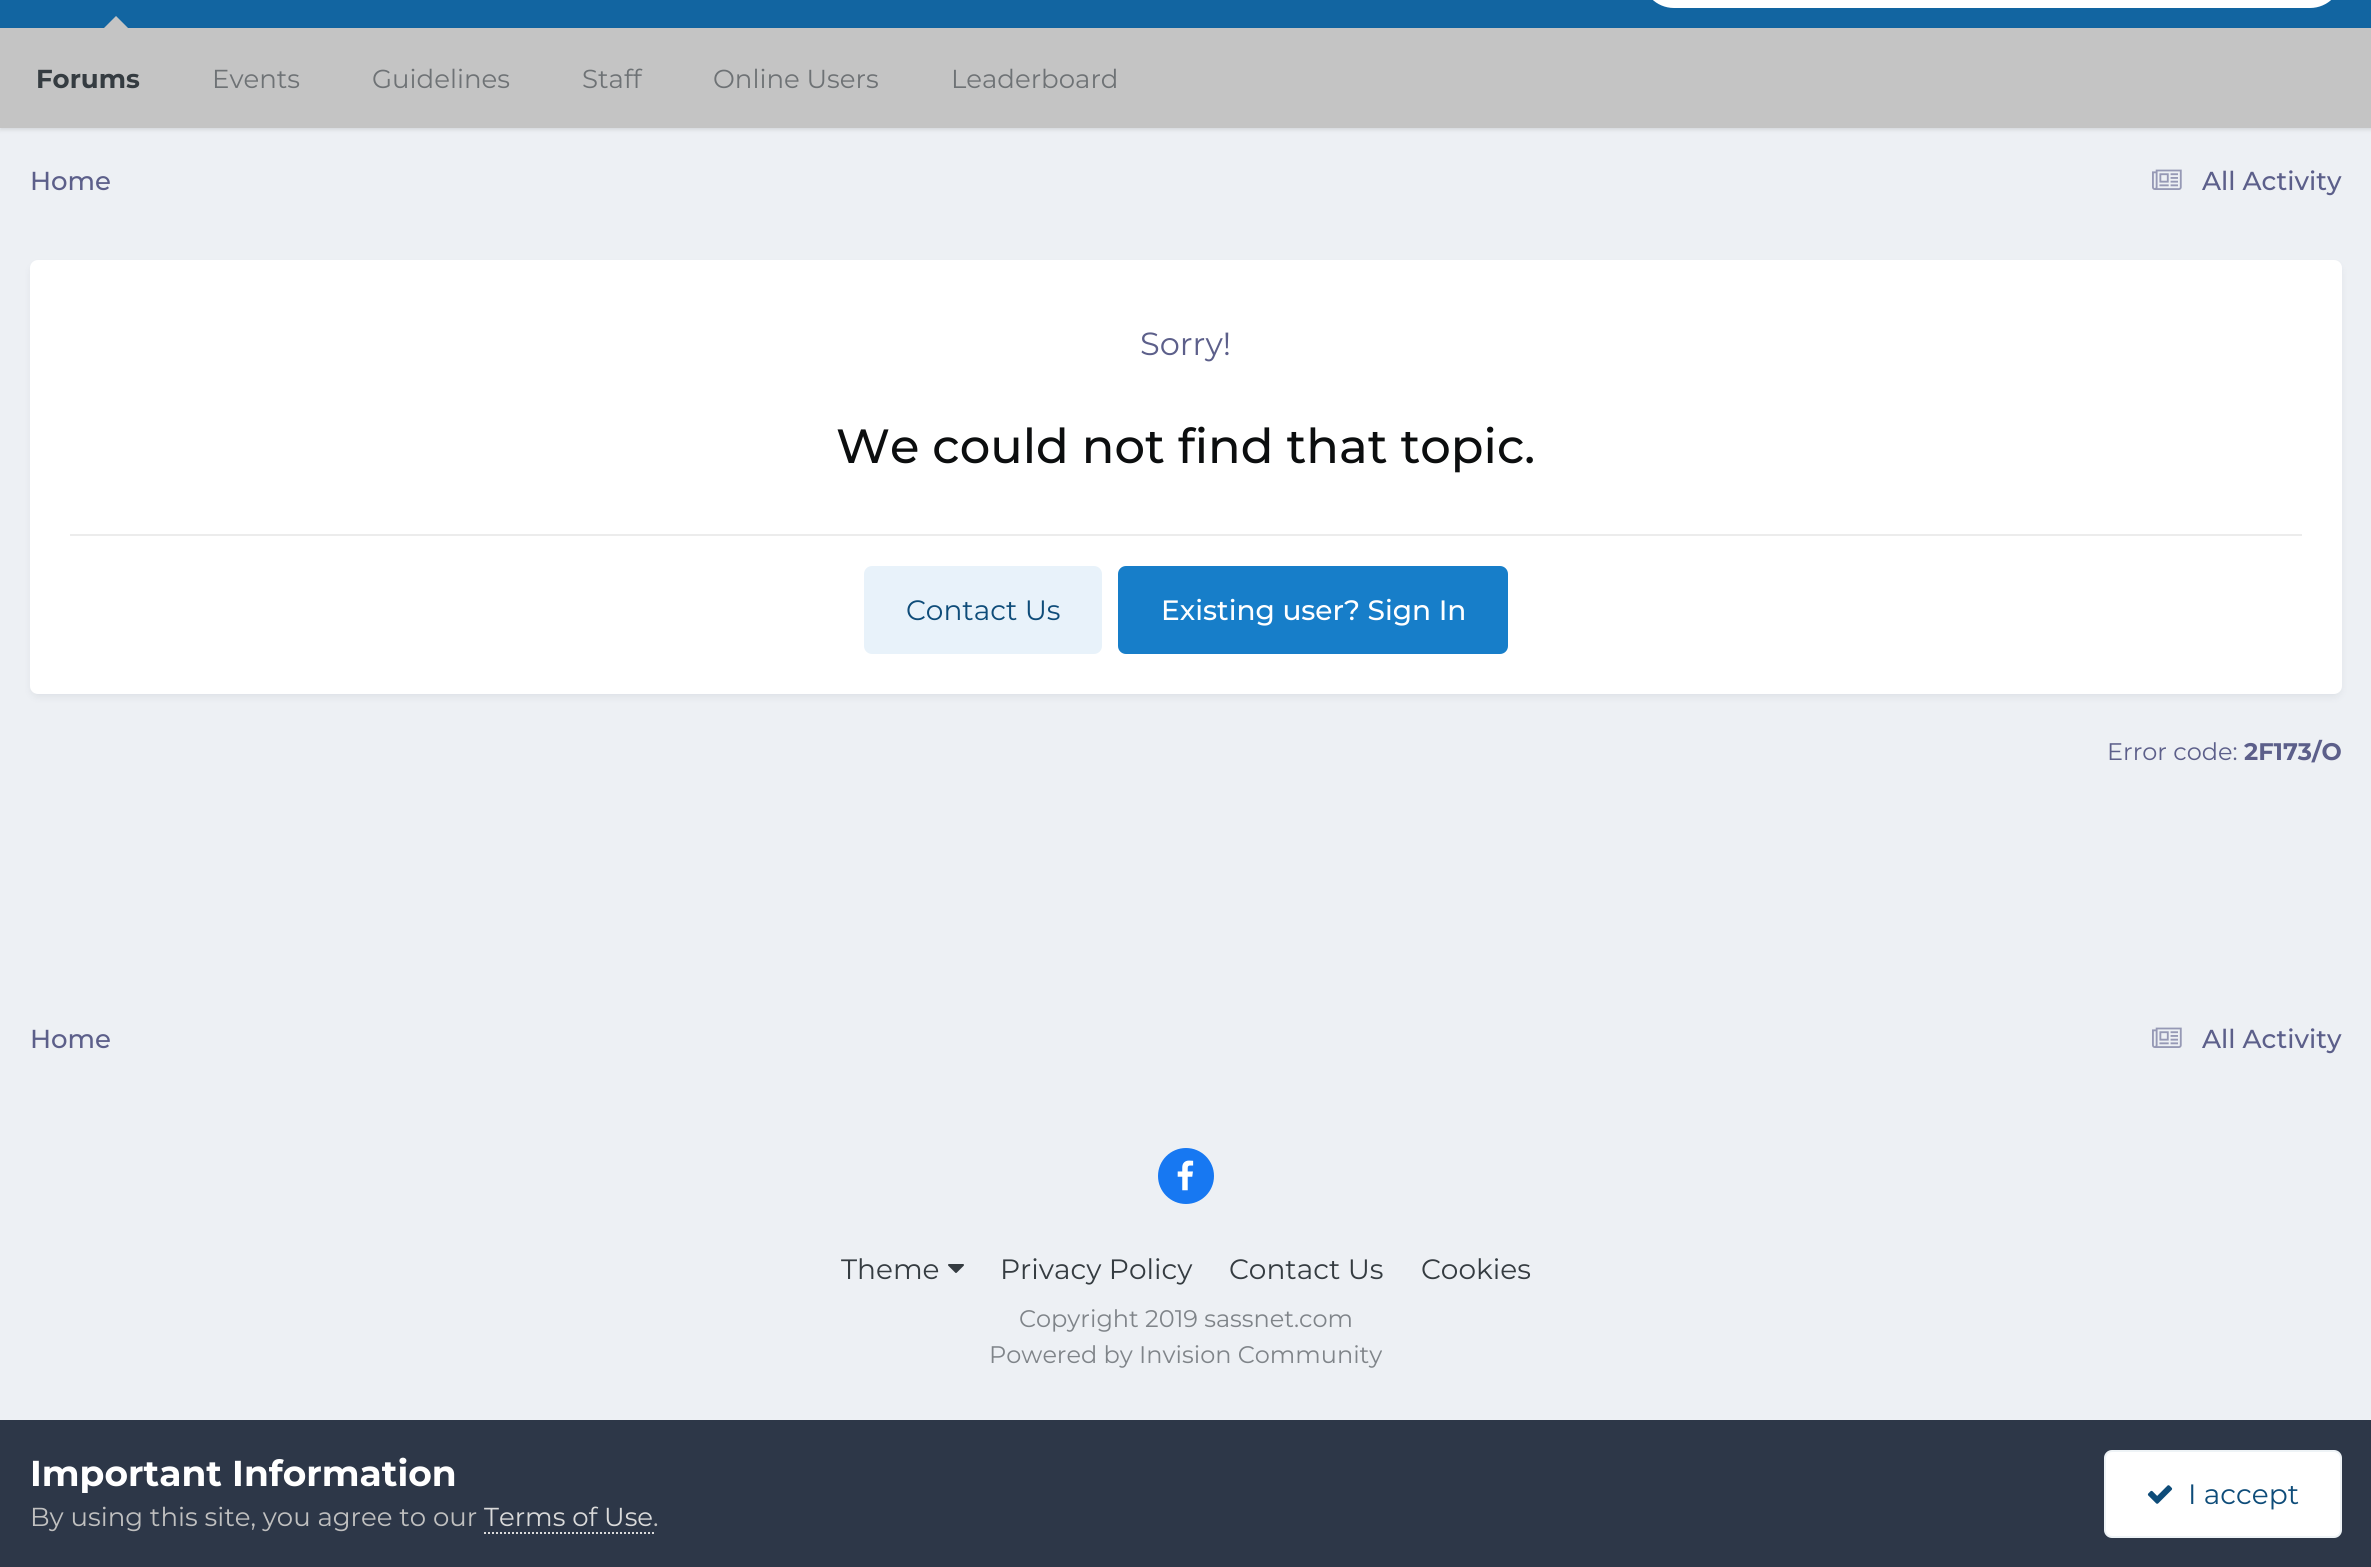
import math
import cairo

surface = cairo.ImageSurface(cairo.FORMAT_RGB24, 2371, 1567)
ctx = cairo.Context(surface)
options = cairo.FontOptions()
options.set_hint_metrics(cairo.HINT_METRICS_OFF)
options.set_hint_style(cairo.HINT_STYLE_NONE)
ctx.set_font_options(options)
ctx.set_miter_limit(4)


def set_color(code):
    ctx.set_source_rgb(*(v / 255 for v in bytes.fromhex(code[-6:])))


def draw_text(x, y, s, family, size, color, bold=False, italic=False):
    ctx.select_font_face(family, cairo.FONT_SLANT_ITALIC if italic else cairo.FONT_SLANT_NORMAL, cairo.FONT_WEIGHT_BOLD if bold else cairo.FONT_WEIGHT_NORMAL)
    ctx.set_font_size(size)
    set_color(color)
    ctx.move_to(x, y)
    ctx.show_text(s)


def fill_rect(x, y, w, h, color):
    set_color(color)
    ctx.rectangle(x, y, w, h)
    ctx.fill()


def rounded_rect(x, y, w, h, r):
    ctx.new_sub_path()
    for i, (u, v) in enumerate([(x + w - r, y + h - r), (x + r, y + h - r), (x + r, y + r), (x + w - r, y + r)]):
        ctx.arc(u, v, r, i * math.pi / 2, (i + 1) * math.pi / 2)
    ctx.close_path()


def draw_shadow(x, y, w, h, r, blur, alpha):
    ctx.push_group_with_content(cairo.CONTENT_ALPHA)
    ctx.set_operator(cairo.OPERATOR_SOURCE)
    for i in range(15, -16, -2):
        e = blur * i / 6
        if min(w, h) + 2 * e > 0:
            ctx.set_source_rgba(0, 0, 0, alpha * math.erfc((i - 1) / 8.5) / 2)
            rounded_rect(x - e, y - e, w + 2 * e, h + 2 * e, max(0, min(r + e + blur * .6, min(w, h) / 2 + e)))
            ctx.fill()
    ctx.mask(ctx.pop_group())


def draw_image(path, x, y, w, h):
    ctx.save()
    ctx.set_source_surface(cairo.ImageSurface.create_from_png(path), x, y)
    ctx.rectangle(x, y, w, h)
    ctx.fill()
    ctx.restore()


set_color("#edf0f4")
ctx.paint()
fill_rect(0, 0, 2371, 28, "#1265a1")
set_color("#000000")
draw_shadow(0, 30, 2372, 100, 0, 2, 0.1)
fill_rect(0, 28, 2371, 100, "#c4c4c4")
set_color("#ffffff")
rounded_rect(1642, -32, 700, 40, 32)
ctx.fill()
set_color("#c4c4c4")
ctx.new_path()
ctx.move_to(128, 28)
ctx.line_to(104, 28)
ctx.line_to(116, 16)
ctx.close_path()
ctx.fill()
draw_text(36, 88, "Forums", "Montserrat", 26, "#353c41", bold=True)
draw_text(212, 88, "Events", "Montserrat", 26, "#6e7275")
draw_text(372, 88, "Guidelines", "Montserrat", 26, "#6e7275")
draw_text(582, 88, "Staff", "Montserrat", 26, "#6e7275")
draw_text(713, 88, "Online Users", "Montserrat", 26, "#6e7275")
draw_text(951, 88, "Leaderboard", "Montserrat", 26, "#6e7275")
draw_text(30, 190, "Home", "Montserrat Medium", 26, "#5c5f8a")
draw_image("assets/img1.png", 2152, 169, 30, 21)
draw_text(2202, 190, "All Activity", "Montserrat Medium", 26, "#5c5f8a")
set_color("#2d3748")
draw_shadow(32, 266, 2308, 430, 6, 4, 0.1)
set_color("#ffffff")
rounded_rect(30, 260, 2312, 434, 8)
ctx.fill()
draw_text(1140, 355, "Sorry!", "Montserrat", 32, "#5c5f8a")
draw_text(836, 463, "We could not find that topic.", "Montserrat Medium", 48, "#0c0e0f")
fill_rect(70, 534, 2232, 2, "#ececec")
set_color("#e8f2fa")
rounded_rect(864, 566, 238, 88, 8)
ctx.fill()
draw_text(906, 620, "Contact Us", "Montserrat", 28, "#0e4c79")
set_color("#177ec9")
rounded_rect(1118, 566, 390, 88, 8)
ctx.fill()
draw_text(1161, 620, "Existing user? Sign In", "Montserrat Medium", 28, "#ffffff")
draw_text(2107, 760, "Error code:", "Montserrat", 24, "#5c5f8a")
draw_text(2244, 760, "2F173/O", "Montserrat", 24, "#5c5f8a", bold=True)
draw_text(30, 1048, "Home", "Montserrat Medium", 26, "#5c5f8a")
draw_image("assets/img1.png", 2152, 1027, 30, 21)
draw_text(2202, 1048, "All Activity", "Montserrat Medium", 26, "#5c5f8a")
set_color("#1778f2")
ctx.new_path()
ctx.arc(1186, 1176, 28, 0, 2 * math.pi)
ctx.fill()
draw_image("assets/img2.png", 1177, 1160, 17, 31)
draw_text(841, 1279, "Theme", "Montserrat", 28, "#353c41")
draw_image("assets/img3.png", 948, 1264, 16, 9)
draw_text(1000, 1279, "Privacy Policy", "Montserrat", 28, "#353c41")
draw_text(1229, 1279, "Contact Us", "Montserrat", 28, "#353c41")
draw_text(1421, 1279, "Cookies", "Montserrat", 28, "#353c41")
draw_text(1019, 1327, "Copyright 2019 sassnet.com", "Montserrat", 24, "#7f8489")
draw_text(989, 1363, "Powered by Invision Community", "Montserrat", 24, "#7f8489")
fill_rect(0, 1420, 2371, 147, "#2d3748")
draw_text(30, 1486, "Important Information", "Montserrat", 36, "#ffffff", bold=True)
draw_text(30, 1526, "By using this site, you agree to our", "Montserrat", 26, "#c0c0c0")
draw_text(484, 1526, "Terms of Use", "Montserrat", 26, "#dadada")
ctx.new_path()
ctx.move_to(484, 1533)
ctx.line_to(654, 1533)
ctx.set_dash([2, 2])
ctx.stroke()
draw_text(653, 1526, ".", "Montserrat", 26, "#c0c0c0")
set_color("#ffffff")
rounded_rect(2104, 1450, 238, 88, 8)
ctx.fill()
rounded_rect(2105, 1451, 236, 86, 7)
ctx.set_source_rgba(0.055, 0.298, 0.475, 0.07)
ctx.set_dash([])
ctx.stroke()
draw_image("assets/img4.png", 2147, 1485, 26, 19)
draw_text(2188, 1504, "I accept", "Montserrat", 28, "#0e4c79")
surface.write_to_png("output.png")
